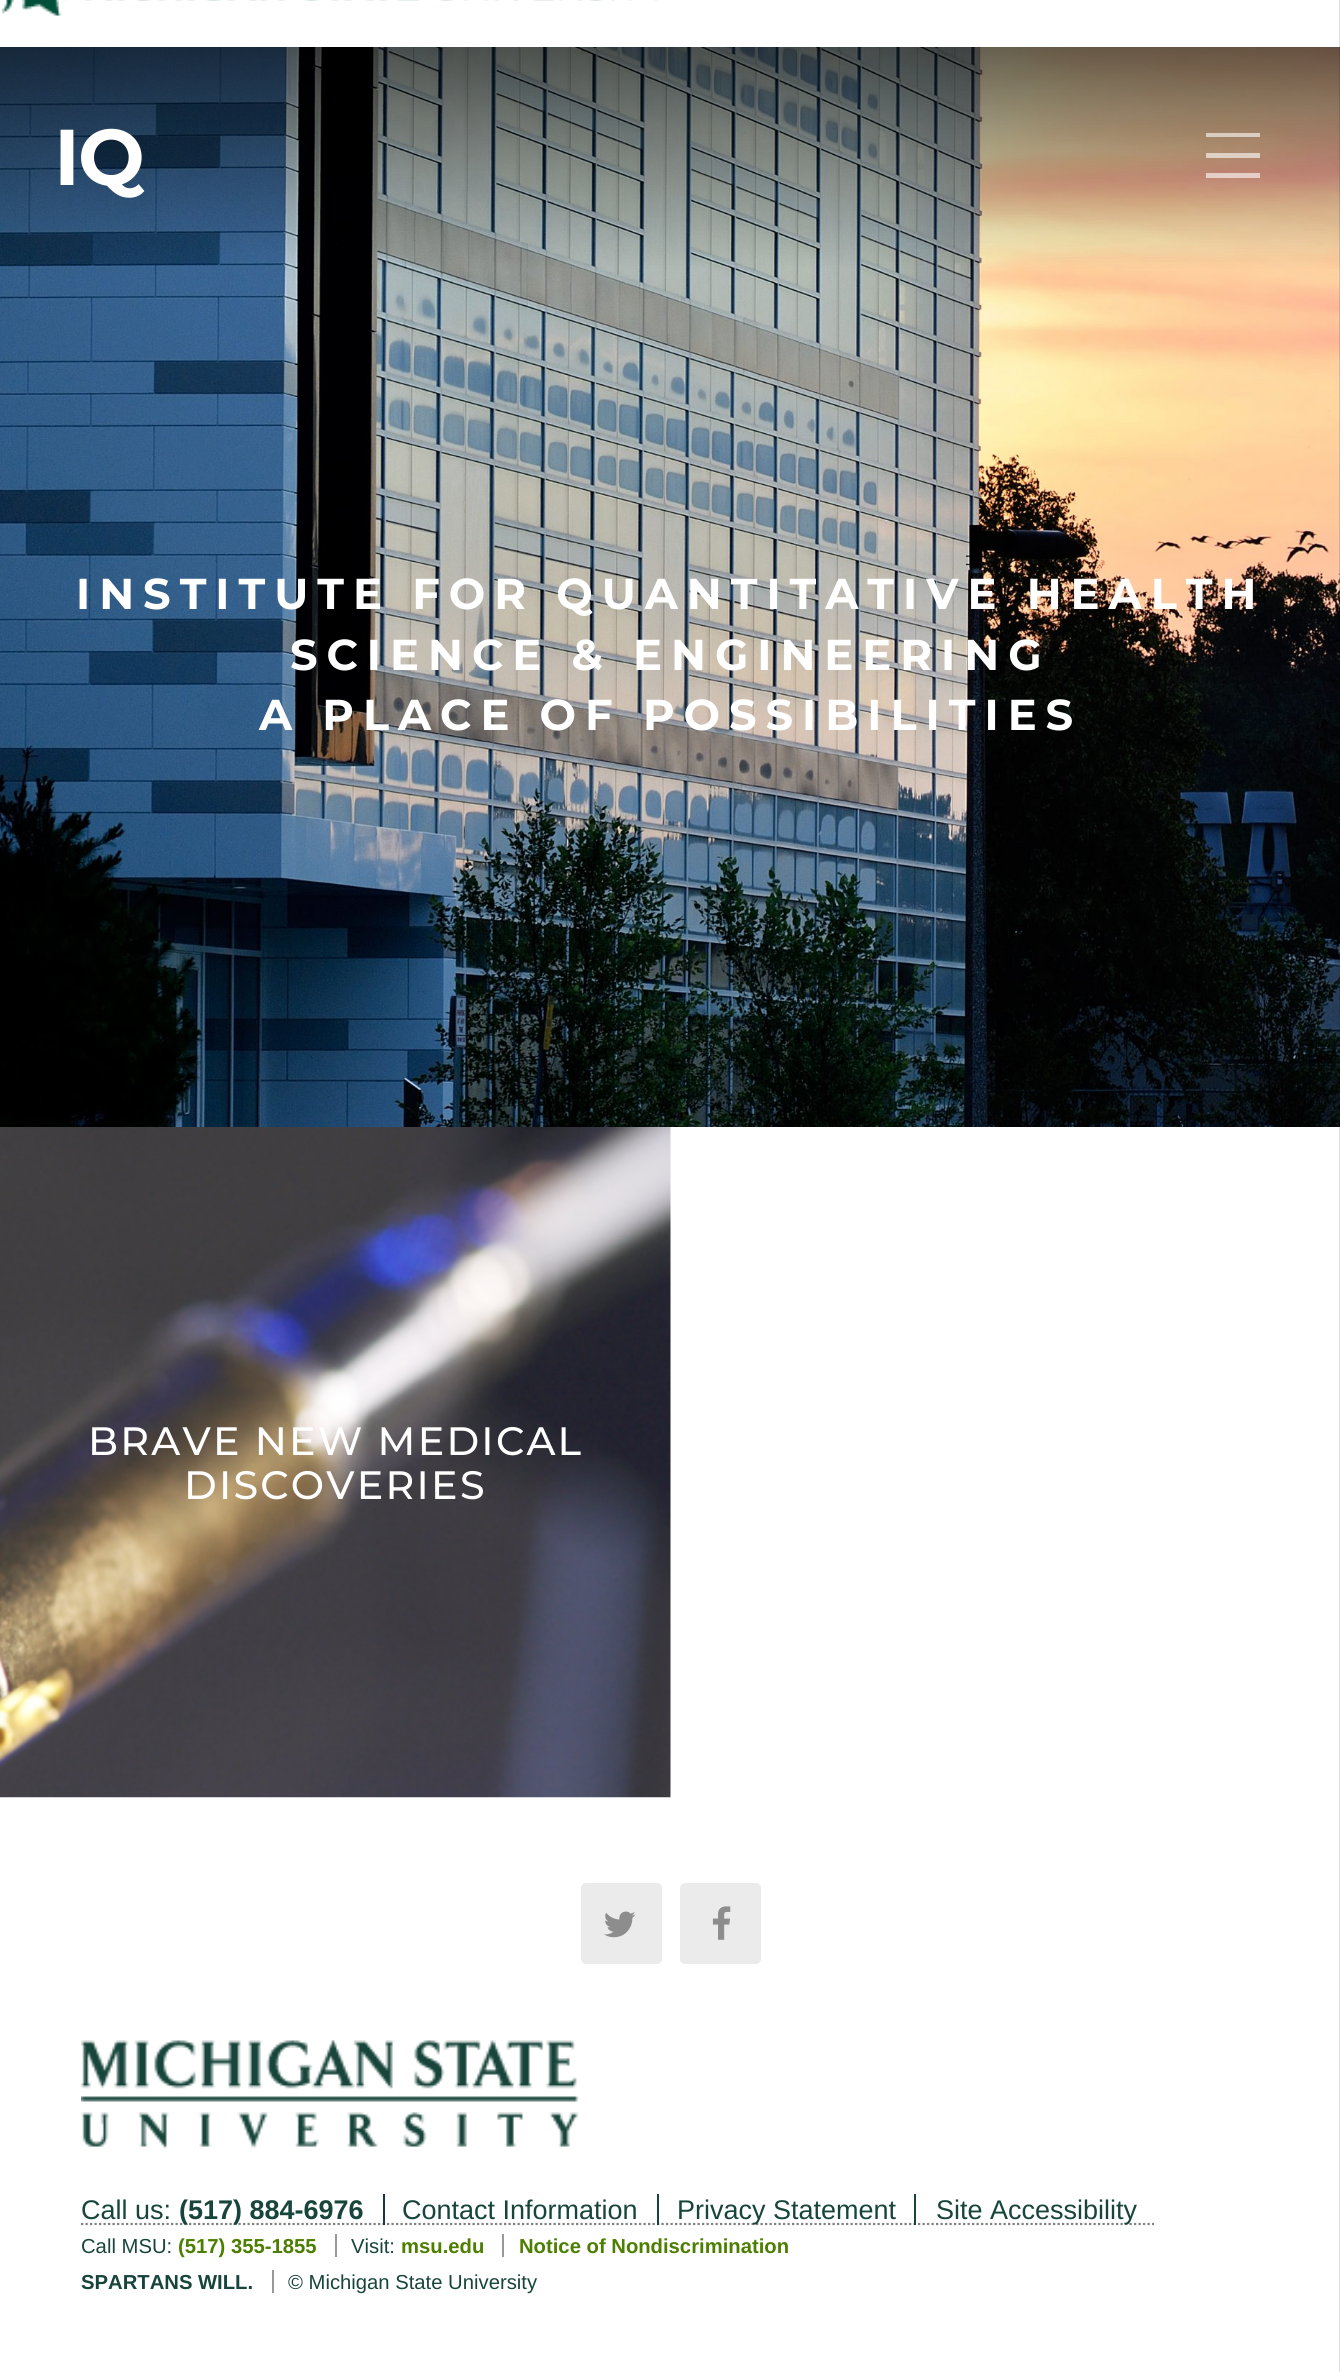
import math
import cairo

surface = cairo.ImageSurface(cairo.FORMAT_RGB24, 1340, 2372)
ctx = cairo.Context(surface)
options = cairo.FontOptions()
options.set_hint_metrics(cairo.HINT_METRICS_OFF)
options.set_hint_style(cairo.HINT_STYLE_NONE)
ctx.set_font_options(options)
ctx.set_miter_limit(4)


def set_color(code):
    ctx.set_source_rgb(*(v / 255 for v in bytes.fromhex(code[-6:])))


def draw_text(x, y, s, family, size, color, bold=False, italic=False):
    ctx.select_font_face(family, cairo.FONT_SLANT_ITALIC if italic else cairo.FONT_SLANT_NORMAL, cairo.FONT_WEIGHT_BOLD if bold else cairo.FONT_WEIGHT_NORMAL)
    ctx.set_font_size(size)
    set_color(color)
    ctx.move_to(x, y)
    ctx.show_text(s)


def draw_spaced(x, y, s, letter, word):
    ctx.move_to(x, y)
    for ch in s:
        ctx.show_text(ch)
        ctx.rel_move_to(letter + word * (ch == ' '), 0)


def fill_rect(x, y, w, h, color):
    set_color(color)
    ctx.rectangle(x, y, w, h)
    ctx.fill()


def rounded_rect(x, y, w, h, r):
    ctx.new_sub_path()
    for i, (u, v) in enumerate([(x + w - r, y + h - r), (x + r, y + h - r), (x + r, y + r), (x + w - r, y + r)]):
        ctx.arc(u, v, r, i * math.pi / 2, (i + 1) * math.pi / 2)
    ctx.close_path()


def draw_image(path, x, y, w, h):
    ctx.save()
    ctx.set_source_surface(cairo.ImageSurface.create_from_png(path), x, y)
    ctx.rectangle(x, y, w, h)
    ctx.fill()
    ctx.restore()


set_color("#ffffff")
ctx.paint()
draw_image("assets/img1.png", 2, 0, 656, 16)
draw_image("assets/img2.png", 0, 47, 1340, 1080)
ctx.select_font_face("Montserrat", cairo.FONT_SLANT_NORMAL, cairo.FONT_WEIGHT_BOLD)
ctx.set_font_size(79)
set_color("#ffffff")
draw_spaced(54, 185, "IQ", -2, 0)
ctx.set_source_rgba(1, 1, 1, 0.6)
ctx.rectangle(1206, 133, 54, 4)
ctx.fill()
ctx.rectangle(1206, 153, 54, 5)
ctx.fill()
ctx.rectangle(1206, 173, 54, 5)
ctx.fill()
ctx.set_font_size(43.2)
set_color("#ffffff")
draw_spaced(76, 609, "INSTITUTE FOR QUANTITATIVE HEALTH", 9, 0)
draw_spaced(290, 670, "SCIENCE & ENGINEERING", 9, 0)
draw_spaced(259, 730, "A PLACE OF POSSIBILITIES", 9, 0)
draw_image("assets/img3.png", 0, 1127, 671, 671)
ctx.select_font_face("Montserrat Medium")
ctx.set_font_size(39.6)
draw_spaced(88, 1455, "BRAVE NEW MEDICAL", 2.25, 0)
draw_spaced(184, 1499, "DISCOVERIES", 2.25, 0)
set_color("#ebebeb")
rounded_rect(581, 1883, 81, 81, 5)
ctx.fill()
draw_image("assets/img4.png", 604, 1911, 32, 27)
rounded_rect(680, 1883, 81, 81, 5)
ctx.fill()
draw_image("assets/img5.png", 712, 1906, 19, 34)
draw_image("assets/img6.png", 81, 2040, 498, 109)
ctx.new_path()
ctx.move_to(81, 2224)
ctx.line_to(1154, 2224)
set_color("#808080")
ctx.set_line_width(2.2)
ctx.set_dash([2.25, 2.25])
ctx.stroke()
draw_text(81, 2219, "Call us:", "Liberation Sans", 27, "#18453b")
draw_text(179, 2219, "(517) 884-6976", "Liberation Sans", 27, "#18453b", bold=True)
draw_text(402, 2219, "Contact Information", "Liberation Sans", 27, "#18453b")
fill_rect(657, 2194, 2, 31, "#18453b")
fill_rect(383, 2194, 2, 31, "#18354b")
draw_text(677, 2219, "Privacy Statement", "Liberation Sans", 27, "#18453b")
fill_rect(914, 2194, 2, 31, "#18453b")
draw_text(936, 2219, "Site Accessibility", "Liberation Sans", 27, "#18453b")
draw_text(81, 2253, "Call MSU:", "Liberation Sans", 20.25, "#18453b")
draw_text(178, 2253, "(517) 355-1855", "Liberation Sans", 20.25, "#4c7e00", bold=True)
fill_rect(335, 2234, 2, 23, "#999999")
draw_text(351, 2253, "Visit:", "Liberation Sans", 20.25, "#18453b")
draw_text(401, 2253, "msu.edu", "Liberation Sans", 20.25, "#4c7e00", bold=True)
fill_rect(502, 2234, 2, 23, "#999999")
draw_text(519, 2253, "Notice of Nondiscrimination", "Liberation Sans", 20.25, "#4c7e00", bold=True)
draw_text(81, 2289, "SPARTANS WILL.", "Liberation Sans", 20.25, "#18453b", bold=True)
fill_rect(272, 2270, 2, 23, "#999999")
draw_text(288, 2289, "© Michigan State University", "Liberation Sans", 20.25, "#18453b")
ctx.set_source_rgba(0, 0, 0, 0.12)
ctx.rectangle(1339, 0, 1, 2372)
ctx.fill()
surface.write_to_png("output.png")
